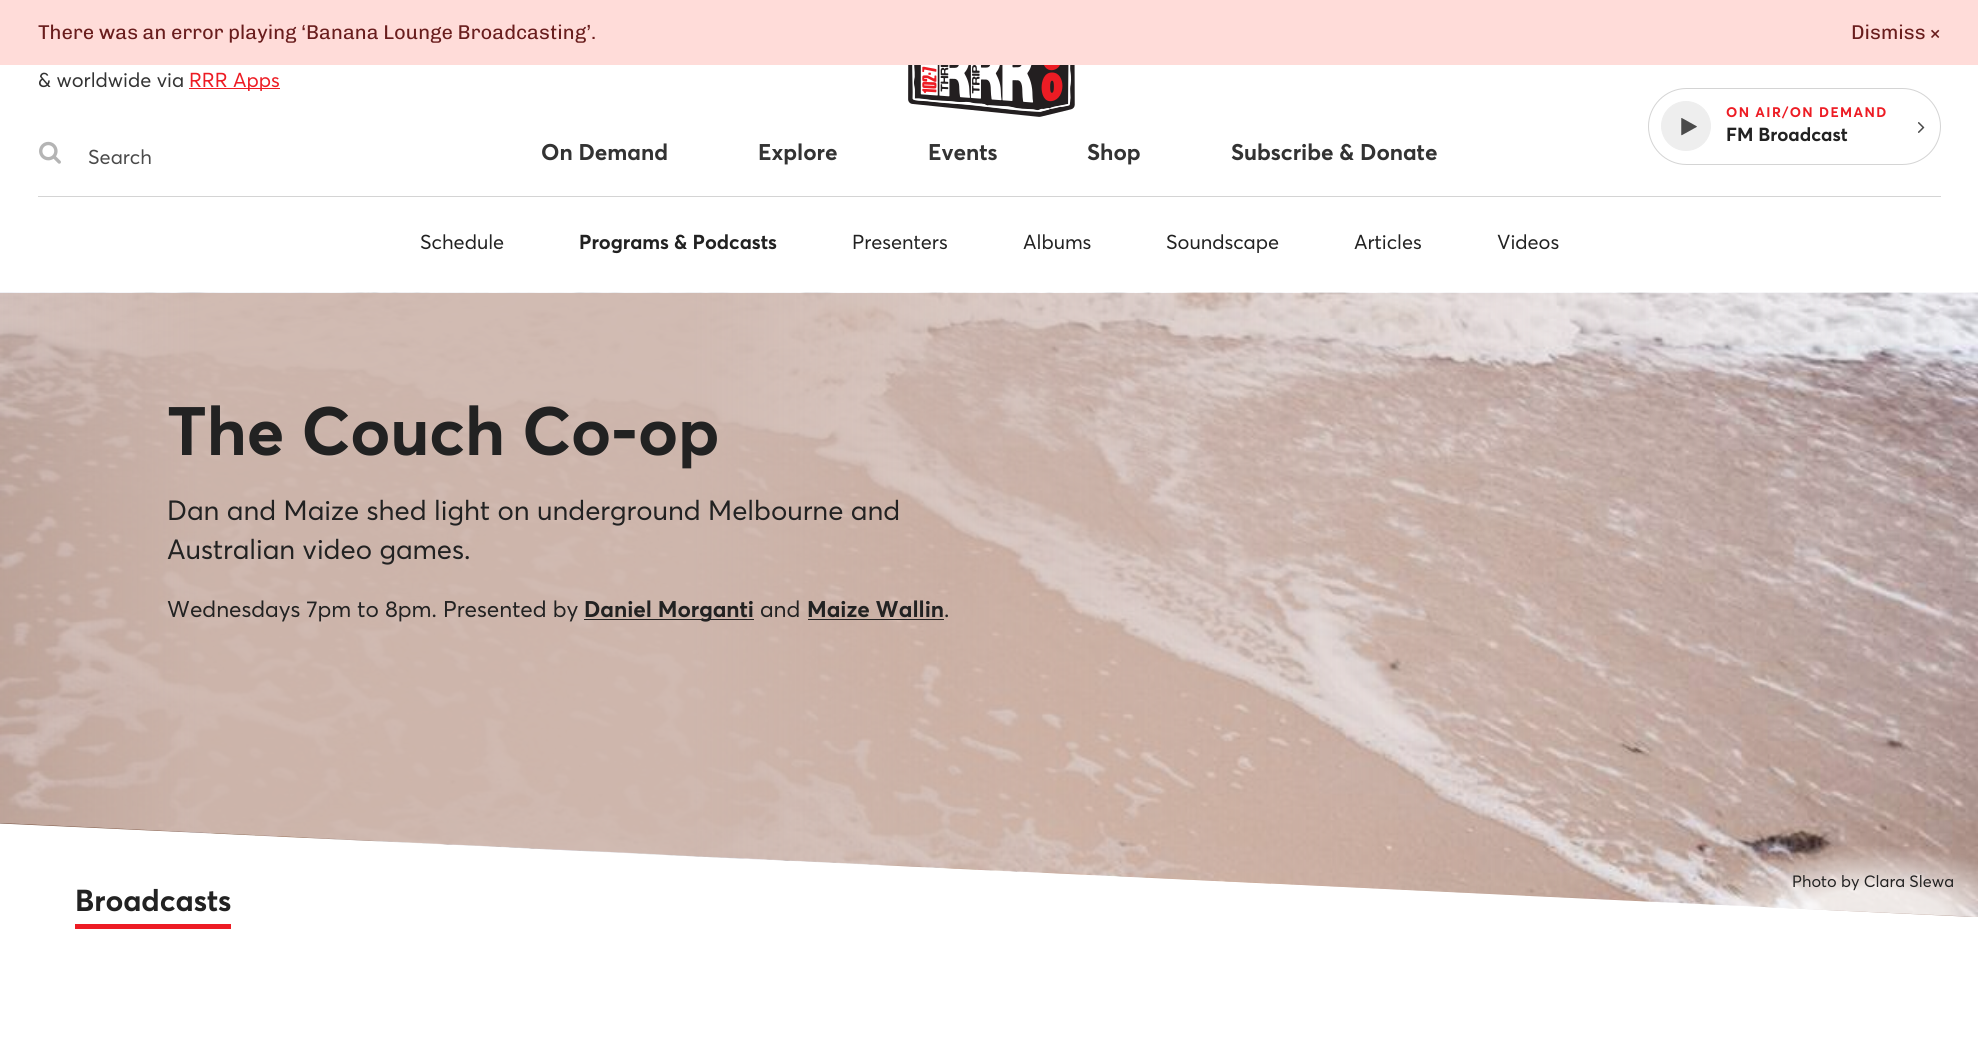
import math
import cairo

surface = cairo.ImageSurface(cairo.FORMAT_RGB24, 1978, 1050)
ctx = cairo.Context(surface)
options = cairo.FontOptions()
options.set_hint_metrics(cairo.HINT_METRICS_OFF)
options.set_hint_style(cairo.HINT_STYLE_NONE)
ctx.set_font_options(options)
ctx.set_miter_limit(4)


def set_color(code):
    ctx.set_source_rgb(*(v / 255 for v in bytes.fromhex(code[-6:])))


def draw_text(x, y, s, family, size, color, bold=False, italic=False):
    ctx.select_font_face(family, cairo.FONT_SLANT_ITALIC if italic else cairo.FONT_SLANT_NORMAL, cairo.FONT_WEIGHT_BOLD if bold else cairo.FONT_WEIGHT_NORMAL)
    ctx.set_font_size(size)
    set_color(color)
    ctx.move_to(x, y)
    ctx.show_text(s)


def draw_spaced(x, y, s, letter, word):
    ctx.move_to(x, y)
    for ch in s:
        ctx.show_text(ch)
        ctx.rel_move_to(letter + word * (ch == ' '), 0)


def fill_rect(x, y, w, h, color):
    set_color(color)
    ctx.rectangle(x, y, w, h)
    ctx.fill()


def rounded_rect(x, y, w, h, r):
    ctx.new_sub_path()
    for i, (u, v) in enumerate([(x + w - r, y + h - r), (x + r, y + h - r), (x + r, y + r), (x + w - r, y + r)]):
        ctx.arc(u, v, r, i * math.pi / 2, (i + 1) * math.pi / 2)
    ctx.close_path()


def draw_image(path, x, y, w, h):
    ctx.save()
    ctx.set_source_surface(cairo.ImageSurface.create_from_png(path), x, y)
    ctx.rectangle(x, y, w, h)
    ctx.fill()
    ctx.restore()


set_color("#ffffff")
ctx.paint()
fill_rect(0, 0, 1978, 65, "#ffdcd9")
draw_text(38, 39, "There was an error playing ‘Banana Lounge Broadcasting’.", "Chivo", 20, "#691d1d")
draw_text(1851, 39, "Dismiss", "Chivo", 20, "#691d1d")
draw_text(1929, 39, "×", "Chivo", 20, "#691d1d")
draw_text(38, 87, "& worldwide via", "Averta", 20, "#333333")
fill_rect(189, 88, 91, 1, "#ed1c24")
draw_text(189, 87, "RRR Apps", "Averta", 20, "#ed1c24")
draw_image("assets/img1.png", 39, 141, 22, 23)
draw_text(88, 164, "Search", "Averta", 20, "#4a4a4a")
draw_image("assets/img2.png", 908, 65, 167, 52)
rounded_rect(1648.5, 88.5, 292, 76, 38)
set_color("#d4d4d4")
ctx.set_line_width(1)
ctx.stroke()
set_color("#eeeeee")
ctx.arc(1686, 126, 24.5, 0, 2 * math.pi)
ctx.fill_preserve()
ctx.stroke()
draw_image("assets/img3.png", 1681, 118, 16, 18)
ctx.select_font_face("Averta", cairo.FONT_SLANT_NORMAL, cairo.FONT_WEIGHT_BOLD)
ctx.set_font_size(13.75)
set_color("#ed1c24")
draw_spaced(1726, 117, "ON AIR/ON DEMAND", 1.4, 0)
draw_text(1726, 141, "FM Broadcast", "Averta", 18.75, "#222222", bold=True)
draw_image("assets/img4.png", 1918, 122, 7, 11)
draw_text(541, 160, "On Demand", "Averta", 22.5, "#333333", bold=True)
draw_text(758, 160, "Explore", "Averta", 22.5, "#333333", bold=True)
draw_text(928, 160, "Events", "Averta", 22.5, "#333333", bold=True)
draw_text(1087, 160, "Shop", "Averta", 22.5, "#333333", bold=True)
draw_text(1231, 160, "Subscribe & Donate", "Averta", 22.5, "#333333", bold=True)
fill_rect(38, 196, 1903, 1, "#d4d4d4")
draw_text(420, 249, "Schedule", "Averta", 20, "#222222")
draw_text(579, 249, "Programs & Podcasts", "Averta", 20, "#222222", bold=True)
draw_text(852, 249, "Presenters", "Averta", 20, "#222222")
draw_text(1023, 249, "Albums", "Averta", 20, "#222222")
draw_text(1166, 249, "Soundscape", "Averta", 20, "#222222")
draw_text(1354, 249, "Articles", "Averta", 20, "#222222")
draw_text(1497, 249, "Videos", "Averta", 20, "#222222")
draw_text(75, 911, "Broadcasts", "Averta", 30, "#222222", bold=True)
draw_image("assets/img5.png", 0, 292, 1978, 625)
gradient = cairo.LinearGradient(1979, 605, 0, 605)
gradient.add_color_stop_rgba(0, 0.812, 0.722, 0.686, 0)
gradient.add_color_stop_rgba(0.55, 0.812, 0.722, 0.686, 0.8)
gradient.add_color_stop_rgba(0.65, 0.812, 0.722, 0.686, 0.95)
gradient.add_color_stop_rgba(0.9, 0.812, 0.722, 0.686, 0.95)
gradient.add_color_stop_rgba(1, 0.812, 0.722, 0.686, 0.8)
ctx.set_source(gradient)
ctx.new_path()
ctx.move_to(0, 293)
ctx.line_to(0, 823)
ctx.line_to(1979, 917)
ctx.line_to(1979, 293)
ctx.close_path()
ctx.fill()
draw_text(167, 455, "The Couch Co-op", "Averta", 67.5, "#222222", bold=True)
draw_text(167, 520, "Dan and Maize shed light on underground Melbourne and", "Averta", 27.5, "#222222")
draw_text(167, 559, "Australian video games.", "Averta", 27.5, "#222222")
draw_text(167, 617, "Wednesdays 7pm to 8pm. Presented by", "Averta", 22.5, "#222222")
fill_rect(584, 619, 170, 1, "#222222")
draw_text(584, 617, "Daniel Morganti", "Averta", 22.5, "#222222", bold=True)
draw_text(760, 617, "and", "Averta", 22.5, "#222222")
draw_text(807, 617, "Maize Wallin", "Averta", 22.5, "#222222", bold=True)
fill_rect(808, 619, 136, 1, "#222222")
draw_text(944, 617, ".", "Averta", 22.5, "#222222")
gradient = cairo.RadialGradient(0, 0, 0, 0, 0, 1)
gradient.set_matrix(cairo.Matrix(1 / 181, 0, 0, 1 / 73, -1 * 1873 / 181, -1 * 918 / 73))
gradient.add_color_stop_rgba(0, 1, 1, 1, 0.8)
gradient.add_color_stop_rgba(0.4, 1, 1, 1, 0.8)
gradient.add_color_stop_rgba(1, 1, 1, 1, 0)
ctx.set_source(gradient)
ctx.new_path()
ctx.move_to(1691, 845)
ctx.line_to(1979, 845)
ctx.line_to(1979, 917)
ctx.line_to(1691, 904)
ctx.close_path()
ctx.fill()
draw_text(1792, 887, "Photo by Clara Slewa", "Averta", 16.25, "#222222")
fill_rect(75, 924, 156, 5, "#ed1c24")
surface.write_to_png("output.png")
